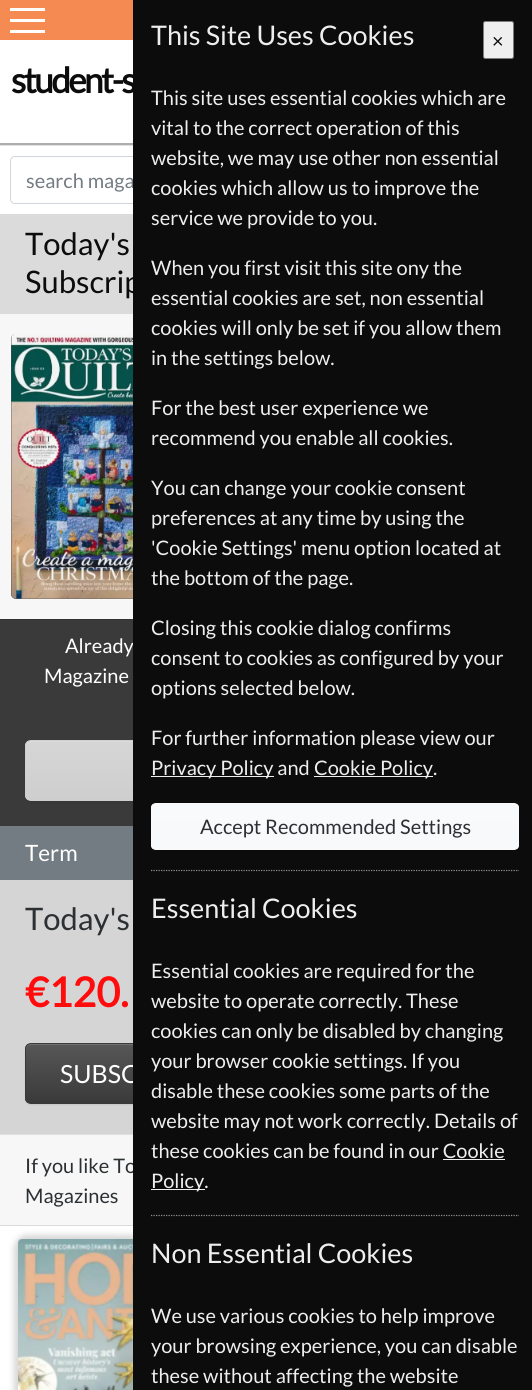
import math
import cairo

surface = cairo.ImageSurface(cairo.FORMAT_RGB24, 532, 1390)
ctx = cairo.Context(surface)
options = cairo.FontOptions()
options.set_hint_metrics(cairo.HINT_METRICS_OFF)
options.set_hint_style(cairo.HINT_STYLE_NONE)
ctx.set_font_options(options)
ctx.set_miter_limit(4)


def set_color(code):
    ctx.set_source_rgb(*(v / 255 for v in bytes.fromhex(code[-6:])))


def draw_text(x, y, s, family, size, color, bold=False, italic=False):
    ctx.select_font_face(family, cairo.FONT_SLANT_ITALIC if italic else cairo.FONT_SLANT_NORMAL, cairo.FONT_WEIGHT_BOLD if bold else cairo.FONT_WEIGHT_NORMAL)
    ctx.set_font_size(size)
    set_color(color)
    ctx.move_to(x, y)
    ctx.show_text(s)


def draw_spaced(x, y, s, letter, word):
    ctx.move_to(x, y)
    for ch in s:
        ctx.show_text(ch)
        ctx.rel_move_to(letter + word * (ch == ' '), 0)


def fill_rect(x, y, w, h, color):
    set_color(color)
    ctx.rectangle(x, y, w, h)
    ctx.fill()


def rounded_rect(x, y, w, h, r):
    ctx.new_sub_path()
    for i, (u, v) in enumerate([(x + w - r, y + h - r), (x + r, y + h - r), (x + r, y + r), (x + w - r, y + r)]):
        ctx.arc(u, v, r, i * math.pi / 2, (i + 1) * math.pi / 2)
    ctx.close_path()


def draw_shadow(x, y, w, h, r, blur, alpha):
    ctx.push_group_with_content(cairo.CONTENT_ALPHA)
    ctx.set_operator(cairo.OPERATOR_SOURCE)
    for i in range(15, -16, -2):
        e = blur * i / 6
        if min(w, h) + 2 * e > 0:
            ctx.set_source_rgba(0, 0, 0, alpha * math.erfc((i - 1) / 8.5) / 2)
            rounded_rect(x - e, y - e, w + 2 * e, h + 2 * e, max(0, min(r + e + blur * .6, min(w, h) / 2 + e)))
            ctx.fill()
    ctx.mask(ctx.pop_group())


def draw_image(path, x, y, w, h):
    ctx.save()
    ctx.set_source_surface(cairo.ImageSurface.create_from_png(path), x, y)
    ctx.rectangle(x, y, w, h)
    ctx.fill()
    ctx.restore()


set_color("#f7f7f7")
ctx.paint()
fill_rect(0, 0, 133, 40, "#f58a53")
fill_rect(0, 143, 133, 2, "#adadad")
fill_rect(10, 8, 35, 3, "#ffffff")
fill_rect(10, 19, 35, 3, "#ffffff")
fill_rect(10, 30, 35, 3, "#ffffff")
fill_rect(0, 146, 133, 68, "#ffffff")
ctx.new_path()
ctx.move_to(15, 156.5)
ctx.line_to(470.5, 156.5)
ctx.line_to(470.5, 203.5)
ctx.line_to(15, 203.5)
ctx.curve_to(12.5, 203.5, 10.5, 201.5, 10.5, 199)
ctx.line_to(10.5, 161)
ctx.curve_to(10.5, 158.5, 12.5, 156.5, 15, 156.5)
ctx.close_path()
set_color("#d0d6db")
ctx.set_line_width(1)
ctx.stroke()
draw_text(26, 188, "search maga", "Lato", 20, "#737c83")
gradient = cairo.RadialGradient(111, 466, 0, 111, 466, 166)
gradient.add_color_stop_rgba(0, 0.427, 0.427, 0.427, 1)
gradient.add_color_stop_rgba(1, 0.302, 0.302, 0.302, 1)
ctx.set_source(gradient)
rounded_rect(11, 334, 200, 265, 5)
ctx.fill()
fill_rect(0, 620, 133, 206, "#3a3a3a")
draw_text(65, 653, "Already", "Lato", 20, "#ffffff")
set_color("#0c0c0c")
draw_shadow(25, 741, 483, 62, 6, 0.5, 0.07)
ctx.save()
rounded_rect(25, 740, 483, 61, 6)
ctx.clip()
gradient = cairo.LinearGradient(266, 741, 266, 800)
gradient.add_color_stop_rgba(0, 0.839, 0.839, 0.839, 1)
gradient.add_color_stop_rgba(1, 0.808, 0.808, 0.808, 1)
ctx.set_source(gradient)
ctx.rectangle(25, 741, 108, 59)
ctx.fill()
ctx.restore()
set_color("#dcdcdc")
ctx.new_path()
ctx.move_to(31, 742)
ctx.line_to(502, 742)
ctx.curve_to(504, 742, 506, 745, 506, 747)
ctx.line_to(506, 746)
ctx.curve_to(506, 743, 504, 741, 501, 741)
ctx.line_to(31, 741)
ctx.curve_to(28, 741, 26, 743, 26, 746)
ctx.line_to(26, 747)
ctx.curve_to(26, 745, 28, 742, 31, 742)
ctx.close_path()
ctx.fill()
rounded_rect(25.5, 740.5, 482, 60, 5.5)
set_color("#cecece")
ctx.stroke()
fill_rect(0, 880, 133, 254, "#d5d5d5")
set_color("#0c0c0c")
draw_shadow(25, 1044, 239, 61, 6, 0.5, 0.07)
ctx.save()
rounded_rect(25, 1043, 239, 61, 6)
ctx.clip()
gradient = cairo.LinearGradient(144, 1044, 144, 1103)
gradient.add_color_stop_rgba(0, 0.341, 0.341, 0.341, 1)
gradient.add_color_stop_rgba(1, 0.227, 0.227, 0.227, 1)
ctx.set_source(gradient)
ctx.rectangle(25, 1044, 108, 59)
ctx.fill()
ctx.restore()
ctx.set_source_rgba(1, 1, 1, 0.15)
ctx.new_path()
ctx.move_to(31, 1045)
ctx.line_to(258, 1045)
ctx.curve_to(260, 1045, 262, 1047, 262, 1050)
ctx.line_to(262, 1099)
ctx.line_to(261, 1102)
ctx.curve_to(262, 1101, 263, 1099, 263, 1098)
ctx.line_to(263, 1049)
ctx.curve_to(263, 1046, 261, 1044, 258, 1044)
ctx.line_to(31, 1044)
ctx.curve_to(28, 1044, 26, 1046, 26, 1049)
ctx.line_to(26, 1050)
ctx.curve_to(26, 1047, 28, 1045, 31, 1045)
ctx.close_path()
ctx.fill()
rounded_rect(25.5, 1043.5, 238, 60, 5.5)
set_color("#3a3a3a")
ctx.stroke()
draw_text(60, 1083, "SUBSC", "Lato", 25, "#ffffff")
draw_text(25, 1173, "If you like To", "Lato", 20, "#2c3033")
fill_rect(0, 1226, 133, 164, "#ffffff")
fill_rect(0, 1225, 133, 1, "#dbdbdb")
ctx.save()
ctx.set_fill_rule(cairo.FILL_RULE_EVEN_ODD)
ctx.new_path()
ctx.move_to(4, 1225)
ctx.line_to(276, 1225)
ctx.line_to(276, 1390)
ctx.line_to(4, 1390)
ctx.close_path()
ctx.move_to(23, 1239)
ctx.line_to(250, 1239)
ctx.curve_to(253, 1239, 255, 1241, 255, 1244)
ctx.line_to(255, 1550)
ctx.curve_to(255, 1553, 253, 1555, 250, 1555)
ctx.line_to(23, 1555)
ctx.curve_to(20, 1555, 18, 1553, 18, 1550)
ctx.line_to(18, 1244)
ctx.curve_to(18, 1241, 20, 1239, 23, 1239)
ctx.close_path()
ctx.clip()
set_color("#191919")
draw_shadow(14, 1235, 252, 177, 13, 3, 0.18)
ctx.restore()
fill_rect(133, 0, 399, 1390, "#0c0c0c")
draw_text(151, 45, "This Site Uses Cookies", "Lato", 27, "#eeeeee")
set_color("#efefef")
rounded_rect(483.5, 21.5, 30, 37, 2)
ctx.fill_preserve()
set_color("#7c7c7c")
ctx.stroke()
draw_text(492, 48, "×", "Lato", 20, "#0c0c0c")
draw_text(151, 105, "This site uses essential cookies which are", "Lato", 20, "#eeeeee")
draw_text(151, 135, "vital to the correct operation of this", "Lato", 20, "#eeeeee")
draw_text(151, 165, "website, we may use other non essential", "Lato", 20, "#eeeeee")
draw_text(151, 195, "cookies which allow us to improve the", "Lato", 20, "#eeeeee")
draw_text(151, 225, "service we provide to you.", "Lato", 20, "#eeeeee")
draw_text(151, 275, "When you first visit this site ony the", "Lato", 20, "#eeeeee")
draw_text(151, 305, "essential cookies are set, non essential", "Lato", 20, "#eeeeee")
draw_text(151, 335, "cookies will only be set if you allow them", "Lato", 20, "#eeeeee")
draw_text(151, 365, "in the settings below.", "Lato", 20, "#eeeeee")
draw_text(151, 415, "For the best user experience we", "Lato", 20, "#eeeeee")
draw_text(151, 445, "recommend you enable all cookies.", "Lato", 20, "#eeeeee")
draw_text(151, 495, "You can change your cookie consent", "Lato", 20, "#eeeeee")
draw_text(151, 525, "preferences at any time by using the", "Lato", 20, "#eeeeee")
draw_text(151, 555, "'Cookie Settings' menu option located at", "Lato", 20, "#eeeeee")
draw_text(151, 585, "the bottom of the page.", "Lato", 20, "#eeeeee")
draw_text(151, 635, "Closing this cookie dialog confirms", "Lato", 20, "#eeeeee")
draw_text(151, 665, "consent to cookies as configured by your", "Lato", 20, "#eeeeee")
draw_text(151, 695, "options selected below.", "Lato", 20, "#eeeeee")
draw_text(151, 745, "For further information please view our", "Lato", 20, "#eeeeee")
fill_rect(151, 776, 123, 1, "#eeeeee")
draw_text(151, 775, "Privacy Policy and", "Lato", 20, "#eeeeee")
fill_rect(314, 776, 119, 1, "#eeeeee")
draw_text(314, 775, "Cookie Policy.", "Lato", 20, "#eeeeee")
ctx.save()
rounded_rect(151, 803, 368, 47, 5)
ctx.clip()
gradient = cairo.LinearGradient(335, 804, 335, 849)
gradient.add_color_stop_rgba(0, 0.976, 0.98, 0.984, 1)
gradient.add_color_stop_rgba(1, 0.973, 0.976, 0.98, 1)
ctx.set_source(gradient)
ctx.rectangle(151, 804, 368, 45)
ctx.fill()
ctx.restore()
rounded_rect(151.5, 803.5, 367, 46, 4.5)
set_color("#f8f9fa")
ctx.stroke()
draw_text(200, 834, "Accept Recommended Settings", "Lato", 20, "#2c3033")
ctx.new_path()
ctx.move_to(151, 870.5)
ctx.line_to(519, 870.5)
set_color("#919090")
ctx.set_line_width(1.2)
ctx.set_dash([1.25, 1.25])
ctx.stroke()
draw_text(151, 918, "Essential Cookies", "Lato", 27, "#eeeeee")
draw_text(151, 978, "Essential cookies are required for the", "Lato", 20, "#eeeeee")
draw_text(151, 1008, "website to operate correctly. These", "Lato", 20, "#eeeeee")
draw_text(151, 1038, "cookies can only be disabled by changing", "Lato", 20, "#eeeeee")
draw_text(151, 1068, "your browser cookie settings. If you", "Lato", 20, "#eeeeee")
draw_text(151, 1098, "disable these cookies some parts of the", "Lato", 20, "#eeeeee")
draw_text(151, 1128, "website may not work correctly. Details of", "Lato", 20, "#eeeeee")
draw_text(151, 1158, "these cookies can be found in our Cookie", "Lato", 20, "#eeeeee")
fill_rect(151, 1189, 54, 1, "#eeeeee")
draw_text(151, 1188, "Policy.", "Lato", 20, "#eeeeee")
fill_rect(443, 1159, 62, 1, "#eeeeee")
ctx.new_path()
ctx.move_to(151, 1215.5)
ctx.line_to(519, 1215.5)
set_color("#919090")
ctx.stroke()
draw_text(151, 1263, "Non Essential Cookies", "Lato", 27, "#eeeeee")
draw_text(151, 1323, "We use various cookies to help improve", "Lato", 20, "#eeeeee")
draw_text(151, 1353, "your browsing experience, you can disable", "Lato", 20, "#eeeeee")
draw_text(151, 1383, "these without affecting the website", "Lato", 20, "#eeeeee")
fill_rect(0, 40, 133, 103, "#ffffff")
ctx.select_font_face("Lato", cairo.FONT_SLANT_NORMAL, cairo.FONT_WEIGHT_BOLD)
ctx.set_font_size(35)
set_color("#0c0c0c")
draw_spaced(11, 93, "student-s", -2.5, 0)
fill_rect(0, 145, 133, 1, "#e1e1e1")
fill_rect(0, 214, 133, 100, "#dbdbdb")
draw_text(25, 255, "Today's", "Lato", 31, "#0c0c0c")
draw_text(25, 293, "Subscrip", "Lato", 31, "#0c0c0c")
draw_image("assets/img1.png", 11, 334, 122, 265)
fill_rect(0, 619, 133, 1, "#343434")
draw_text(44, 683, "Magazine", "Lato", 20, "#ffffff")
fill_rect(0, 826, 133, 54, "#737c83")
draw_text(25, 861, "Term", "Lato", 22.5, "#ffffff")
draw_text(25, 930, "Today's", "Lato", 31, "#2c3033")
draw_text(25, 1007, "€120.", "Lato", 41, "#ff0c0c", bold=True)
fill_rect(0, 1134, 133, 1, "#e1e1e1")
draw_text(25, 1203, "Magazines", "Lato", 20, "#2c3033")
draw_image("assets/img2.png", 18, 1239, 115, 151)
surface.write_to_png("output.png")
